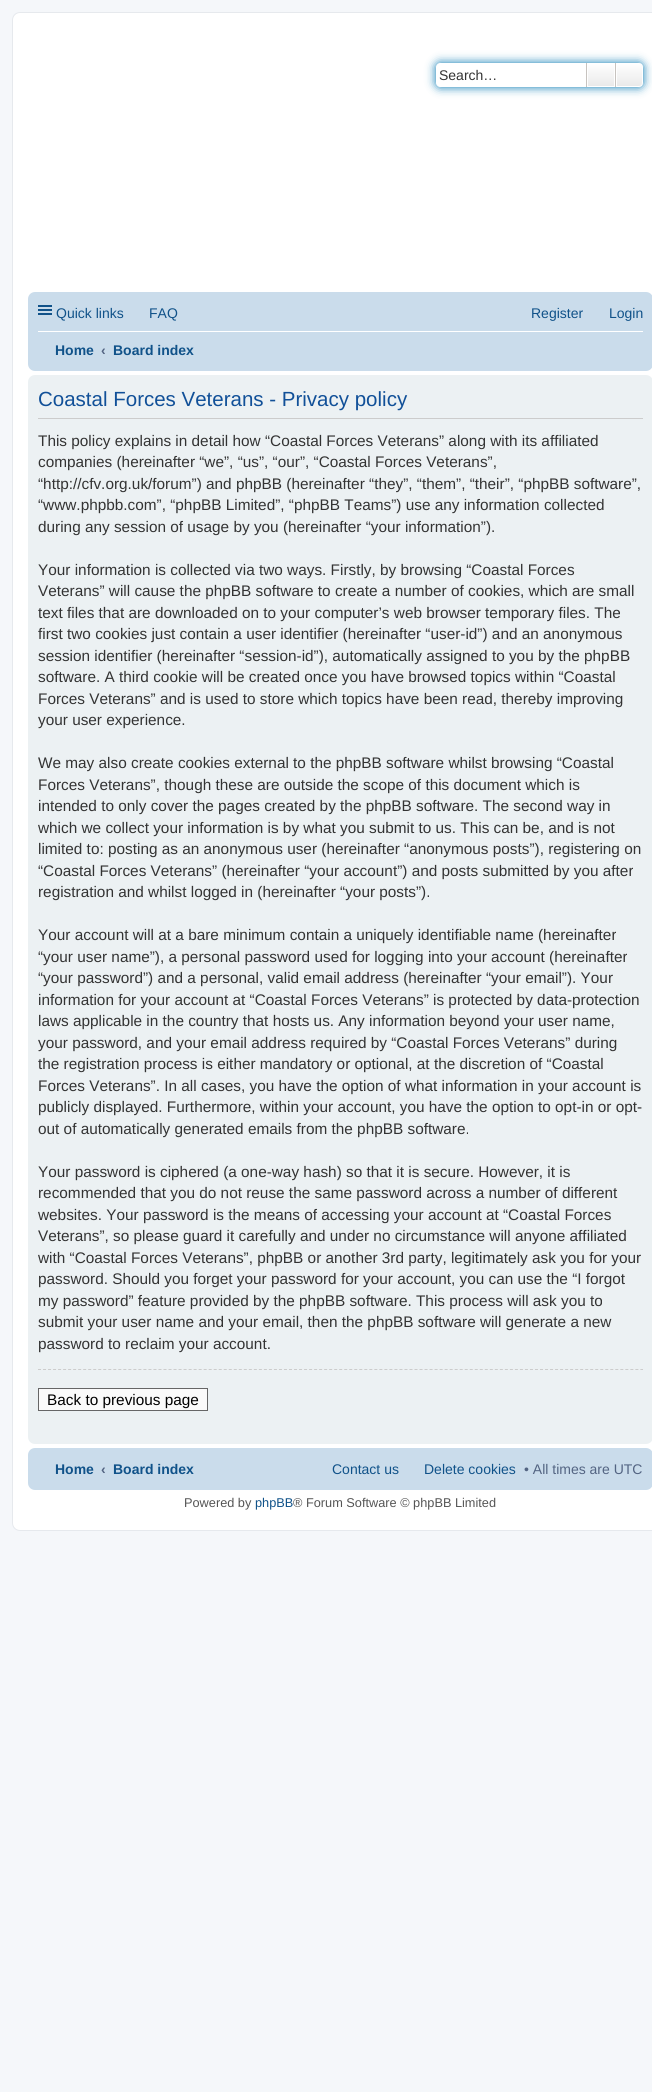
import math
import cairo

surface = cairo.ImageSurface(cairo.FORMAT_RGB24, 652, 2092)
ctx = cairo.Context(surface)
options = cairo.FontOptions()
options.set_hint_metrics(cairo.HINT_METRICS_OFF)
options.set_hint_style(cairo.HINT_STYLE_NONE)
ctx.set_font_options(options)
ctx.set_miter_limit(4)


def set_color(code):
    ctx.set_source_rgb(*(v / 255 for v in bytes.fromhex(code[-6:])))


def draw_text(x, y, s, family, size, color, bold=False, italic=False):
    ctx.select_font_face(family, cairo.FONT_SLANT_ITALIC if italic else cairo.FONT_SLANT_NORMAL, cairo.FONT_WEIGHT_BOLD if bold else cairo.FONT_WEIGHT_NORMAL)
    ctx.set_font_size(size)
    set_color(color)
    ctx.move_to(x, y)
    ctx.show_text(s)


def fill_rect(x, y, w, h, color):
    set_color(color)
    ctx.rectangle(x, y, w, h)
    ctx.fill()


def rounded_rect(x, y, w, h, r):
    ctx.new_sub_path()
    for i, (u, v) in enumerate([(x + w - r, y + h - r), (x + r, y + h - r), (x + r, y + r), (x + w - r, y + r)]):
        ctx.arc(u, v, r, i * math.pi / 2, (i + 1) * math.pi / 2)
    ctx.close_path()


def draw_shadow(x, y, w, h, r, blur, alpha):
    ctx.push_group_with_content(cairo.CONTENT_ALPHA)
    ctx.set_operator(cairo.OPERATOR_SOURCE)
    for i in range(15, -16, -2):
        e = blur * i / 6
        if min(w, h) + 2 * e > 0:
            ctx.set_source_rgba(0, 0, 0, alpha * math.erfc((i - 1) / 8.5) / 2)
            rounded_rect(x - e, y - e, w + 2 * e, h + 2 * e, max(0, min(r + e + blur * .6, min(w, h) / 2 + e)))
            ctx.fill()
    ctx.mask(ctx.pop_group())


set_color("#f5f7fa")
ctx.paint()
set_color("#ffffff")
rounded_rect(12.5, 12.5, 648, 1518, 7.5)
ctx.fill_preserve()
set_color("#e6e9ed")
ctx.set_line_width(1)
ctx.stroke()
set_color("#0075b0")
draw_shadow(436, 63, 207, 24, 4, 5, 1)
set_color("#ffffff")
ctx.new_path()
ctx.move_to(440, 63)
ctx.line_to(586, 63)
ctx.line_to(586, 87)
ctx.line_to(440, 87)
ctx.curve_to(438, 87, 436, 85, 436, 83)
ctx.line_to(436, 67)
ctx.curve_to(436, 65, 438, 63, 440, 63)
ctx.close_path()
ctx.fill()
draw_text(439, 80, "Search…", "Liberation Sans", 14, "#333333")
gradient = cairo.LinearGradient(601, 63, 601, 87)
gradient.add_color_stop_rgba(0, 1, 1, 1, 1)
gradient.add_color_stop_rgba(1, 0.914, 0.914, 0.914, 1)
ctx.set_source(gradient)
ctx.rectangle(588, 64, 26, 22)
ctx.fill()
ctx.rectangle(587.5, 63.5, 27, 23)
set_color("#ffffff")
ctx.stroke()
fill_rect(615, 63, 1, 24, "#c7c3bf")
fill_rect(586, 63, 1, 24, "#c7c3bf")
gradient = cairo.LinearGradient(630, 63, 630, 87)
gradient.add_color_stop_rgba(0, 1, 1, 1, 1)
gradient.add_color_stop_rgba(1, 0.914, 0.914, 0.914, 1)
ctx.set_source(gradient)
ctx.new_path()
ctx.move_to(616.5, 63.5)
ctx.line_to(639, 63.5)
ctx.curve_to(641, 63.5, 642.5, 65, 642.5, 67)
ctx.line_to(642.5, 83)
ctx.curve_to(642.5, 85, 641, 86.5, 639, 86.5)
ctx.line_to(616.5, 86.5)
ctx.close_path()
ctx.fill_preserve()
set_color("#ffffff")
ctx.stroke()
set_color("#cadceb")
rounded_rect(28, 292, 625, 79, 7)
ctx.fill()
fill_rect(38, 305, 14, 2, "#105289")
fill_rect(38, 309, 14, 2, "#105289")
fill_rect(38, 313, 14, 2, "#105289")
draw_text(56, 318, "Quick links", "Liberation Sans", 14, "#105289")
draw_text(149, 318, "FAQ", "Liberation Sans", 14, "#105289")
draw_text(531, 318, "Register", "Liberation Sans", 14, "#105289")
draw_text(609, 318, "Login", "Liberation Sans", 14, "#105289")
fill_rect(38, 331, 605, 1, "#ffffff")
draw_text(55, 355, "Home", "Liberation Sans", 14, "#105289", bold=True)
draw_text(101, 355, "‹", "Liberation Sans", 14, "#536482", bold=True)
draw_text(113, 355, "Board index", "Liberation Sans", 14, "#105289", bold=True)
set_color("#ecf1f3")
rounded_rect(28, 375, 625, 1069, 7)
ctx.fill()
fill_rect(38, 418, 605, 1, "#cccccc")
draw_text(38, 406, "Coastal Forces Veterans - Privacy policy", "Liberation Sans", 20.5, "#115098")
draw_text(38, 446, "This policy explains in detail how “Coastal Forces Veterans” along with its affiliated", "Liberation Sans", 15.35, "#333333")
draw_text(38, 467, "companies (hereinafter “we”, “us”, “our”, “Coastal Forces Veterans”,", "Liberation Sans", 15.35, "#333333")
draw_text(38, 489, "“http://cfv.org.uk/forum”) and phpBB (hereinafter “they”, “them”, “their”, “phpBB software”,", "Liberation Sans", 15.35, "#333333")
draw_text(38, 510, "“www.phpbb.com”, “phpBB Limited”, “phpBB Teams”) use any information collected", "Liberation Sans", 15.35, "#333333")
draw_text(38, 532, "during any session of usage by you (hereinafter “your information”).", "Liberation Sans", 15.35, "#333333")
draw_text(38, 575, "Your information is collected via two ways. Firstly, by browsing “Coastal Forces", "Liberation Sans", 15.35, "#333333")
draw_text(38, 596, "Veterans” will cause the phpBB software to create a number of cookies, which are small", "Liberation Sans", 15.35, "#333333")
draw_text(38, 618, "text files that are downloaded on to your computer’s web browser temporary files. The", "Liberation Sans", 15.35, "#333333")
draw_text(38, 639, "first two cookies just contain a user identifier (hereinafter “user-id”) and an anonymous", "Liberation Sans", 15.35, "#333333")
draw_text(38, 661, "session identifier (hereinafter “session-id”), automatically assigned to you by the phpBB", "Liberation Sans", 15.35, "#333333")
draw_text(38, 682, "software. A third cookie will be created once you have browsed topics within “Coastal", "Liberation Sans", 15.35, "#333333")
draw_text(38, 704, "Forces Veterans” and is used to store which topics have been read, thereby improving", "Liberation Sans", 15.35, "#333333")
draw_text(38, 725, "your user experience.", "Liberation Sans", 15.35, "#333333")
draw_text(38, 768, "We may also create cookies external to the phpBB software whilst browsing “Coastal", "Liberation Sans", 15.35, "#333333")
draw_text(38, 790, "Forces Veterans”, though these are outside the scope of this document which is", "Liberation Sans", 15.35, "#333333")
draw_text(38, 811, "intended to only cover the pages created by the phpBB software. The second way in", "Liberation Sans", 15.35, "#333333")
draw_text(38, 833, "which we collect your information is by what you submit to us. This can be, and is not", "Liberation Sans", 15.35, "#333333")
draw_text(38, 854, "limited to: posting as an anonymous user (hereinafter “anonymous posts”), registering on", "Liberation Sans", 15.35, "#333333")
draw_text(38, 876, "“Coastal Forces Veterans” (hereinafter “your account”) and posts submitted by you after", "Liberation Sans", 15.35, "#333333")
draw_text(38, 897, "registration and whilst logged in (hereinafter “your posts”).", "Liberation Sans", 15.35, "#333333")
draw_text(38, 940, "Your account will at a bare minimum contain a uniquely identifiable name (hereinafter", "Liberation Sans", 15.35, "#333333")
draw_text(38, 962, "“your user name”), a personal password used for logging into your account (hereinafter", "Liberation Sans", 15.35, "#333333")
draw_text(38, 983, "“your password”) and a personal, valid email address (hereinafter “your email”). Your", "Liberation Sans", 15.35, "#333333")
draw_text(38, 1005, "information for your account at “Coastal Forces Veterans” is protected by data-protection", "Liberation Sans", 15.35, "#333333")
draw_text(38, 1026, "laws applicable in the country that hosts us. Any information beyond your user name,", "Liberation Sans", 15.35, "#333333")
draw_text(38, 1048, "your password, and your email address required by “Coastal Forces Veterans” during", "Liberation Sans", 15.35, "#333333")
draw_text(38, 1069, "the registration process is either mandatory or optional, at the discretion of “Coastal", "Liberation Sans", 15.35, "#333333")
draw_text(38, 1091, "Forces Veterans”. In all cases, you have the option of what information in your account is", "Liberation Sans", 15.35, "#333333")
draw_text(38, 1112, "publicly displayed. Furthermore, within your account, you have the option to opt-in or opt-", "Liberation Sans", 15.35, "#333333")
draw_text(38, 1134, "out of automatically generated emails from the phpBB software.", "Liberation Sans", 15.35, "#333333")
draw_text(38, 1177, "Your password is ciphered (a one-way hash) so that it is secure. However, it is", "Liberation Sans", 15.35, "#333333")
draw_text(38, 1198, "recommended that you do not reuse the same password across a number of different", "Liberation Sans", 15.35, "#333333")
draw_text(38, 1220, "websites. Your password is the means of accessing your account at “Coastal Forces", "Liberation Sans", 15.35, "#333333")
draw_text(38, 1241, "Veterans”, so please guard it carefully and under no circumstance will anyone affiliated", "Liberation Sans", 15.35, "#333333")
draw_text(38, 1263, "with “Coastal Forces Veterans”, phpBB or another 3rd party, legitimately ask you for your", "Liberation Sans", 15.35, "#333333")
draw_text(38, 1284, "password. Should you forget your password for your account, you can use the “I forgot", "Liberation Sans", 15.35, "#333333")
draw_text(38, 1306, "my password” feature provided by the phpBB software. This process will ask you to", "Liberation Sans", 15.35, "#333333")
draw_text(38, 1327, "submit your user name and your email, then the phpBB software will generate a new", "Liberation Sans", 15.35, "#333333")
draw_text(38, 1349, "password to reclaim your account.", "Liberation Sans", 15.35, "#333333")
ctx.new_path()
ctx.move_to(38, 1369.5)
ctx.line_to(643, 1369.5)
set_color("#cccccc")
ctx.set_dash([3, 2.02])
ctx.stroke()
set_color("#fafafa")
ctx.rectangle(38.5, 1388.5, 169, 22)
ctx.fill_preserve()
set_color("#666666")
ctx.set_dash([])
ctx.stroke()
draw_text(47, 1405, "Back to previous page", "Liberation Sans", 15.35, "#000000")
set_color("#cadceb")
rounded_rect(28, 1448, 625, 42, 7)
ctx.fill()
draw_text(55, 1474, "Home", "Liberation Sans", 14, "#105289", bold=True)
draw_text(101, 1474, "‹", "Liberation Sans", 14, "#536482", bold=True)
draw_text(113, 1474, "Board index", "Liberation Sans", 14, "#105289", bold=True)
draw_text(332, 1474, "Contact us", "Liberation Sans", 14, "#105289")
draw_text(424, 1474, "Delete cookies", "Liberation Sans", 14, "#105289")
draw_text(524, 1474, "• All times are UTC", "Liberation Sans", 14, "#536482")
draw_text(184, 1507, "Powered by", "Liberation Sans", 12.75, "#555555")
draw_text(255, 1507, "phpBB", "Liberation Sans", 12.75, "#105289")
draw_text(293, 1507, "® Forum Software © phpBB Limited", "Liberation Sans", 12.75, "#555555")
surface.write_to_png("output.png")
